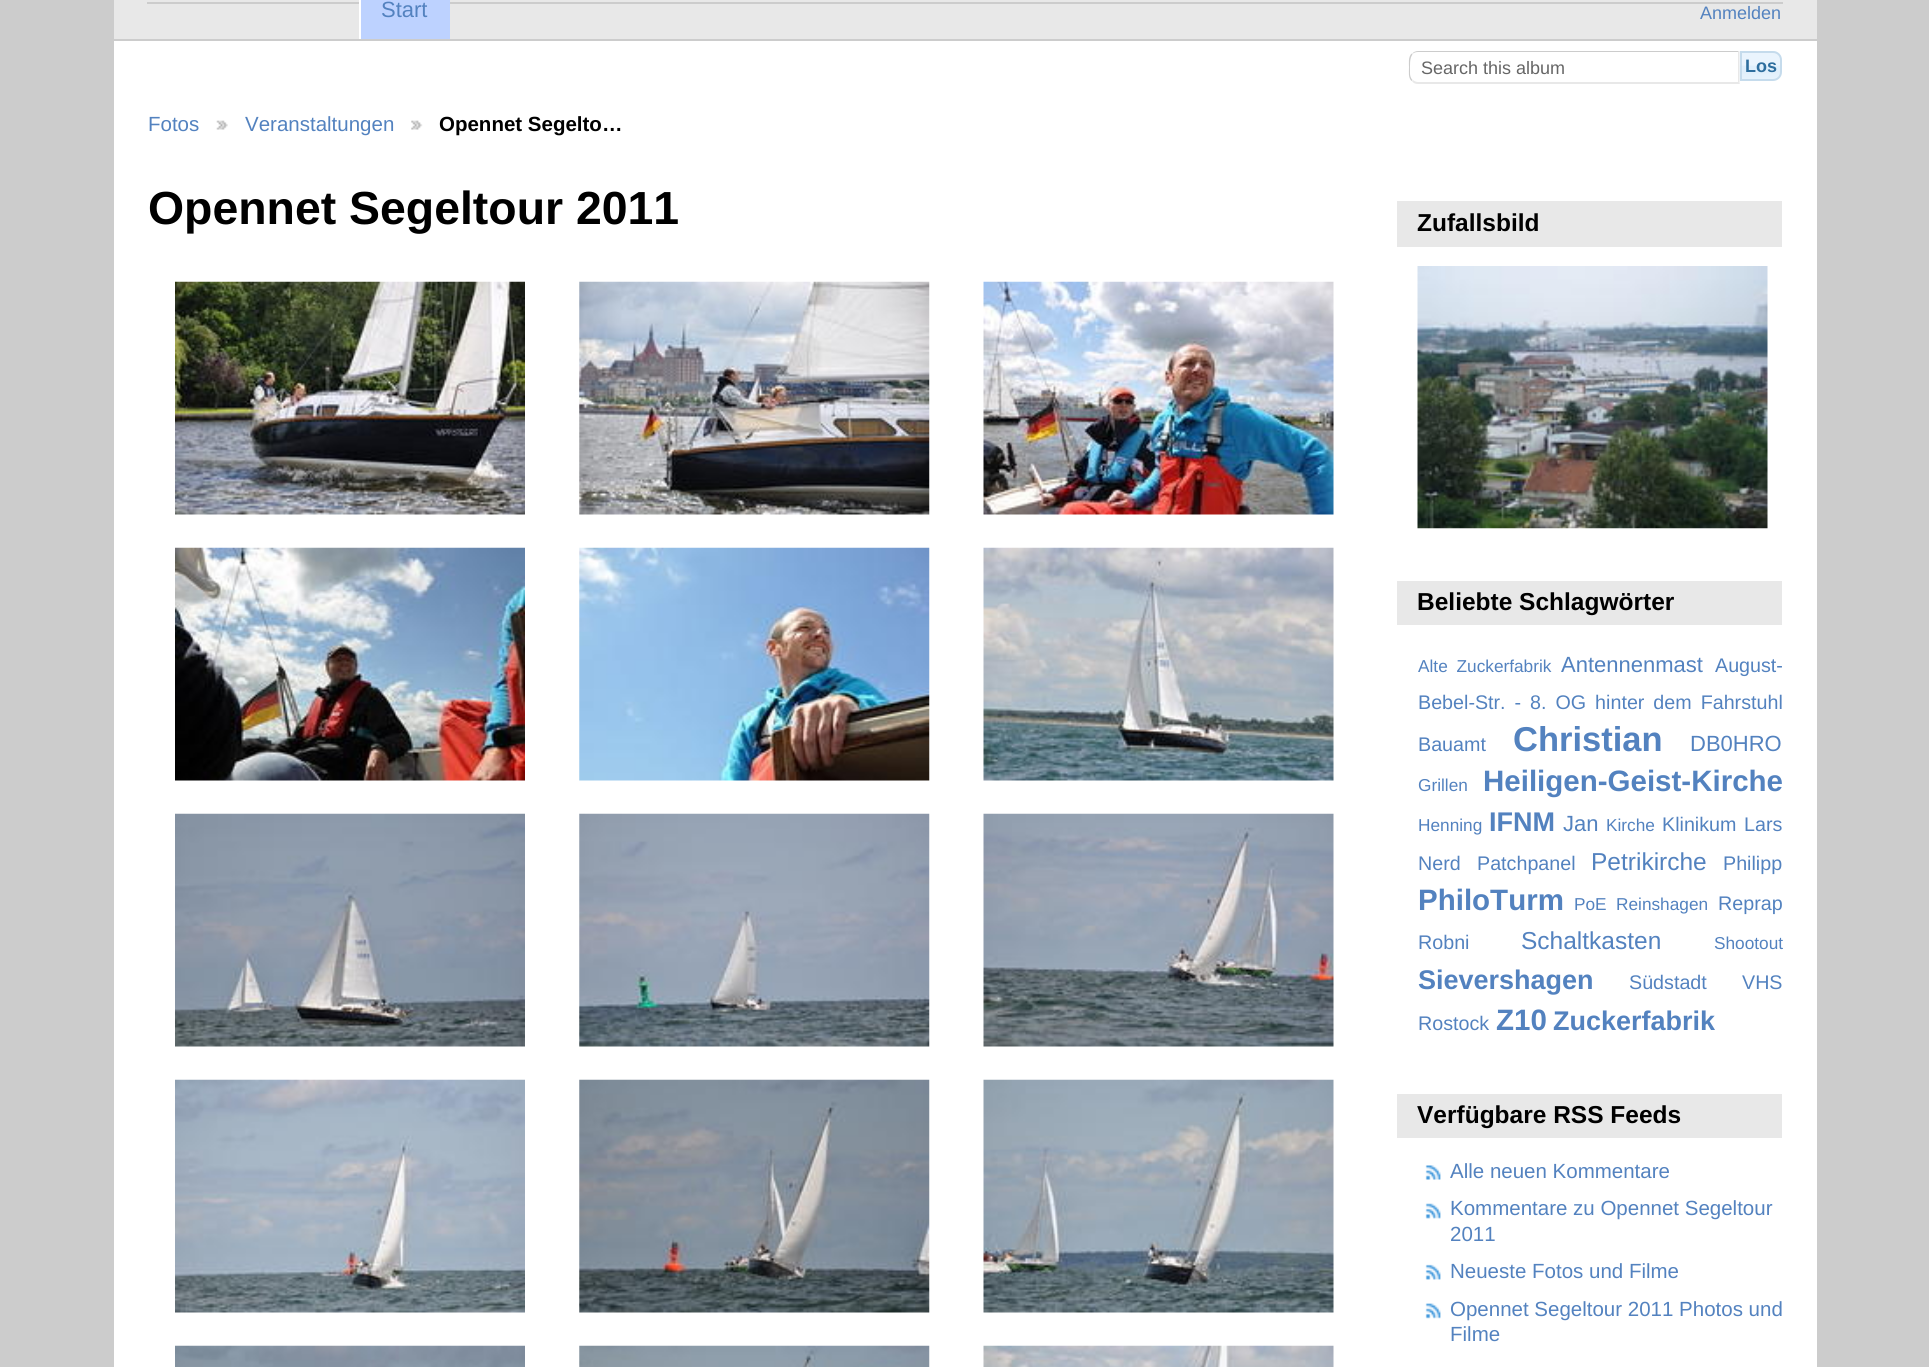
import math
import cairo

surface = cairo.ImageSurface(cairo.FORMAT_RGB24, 1929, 1367)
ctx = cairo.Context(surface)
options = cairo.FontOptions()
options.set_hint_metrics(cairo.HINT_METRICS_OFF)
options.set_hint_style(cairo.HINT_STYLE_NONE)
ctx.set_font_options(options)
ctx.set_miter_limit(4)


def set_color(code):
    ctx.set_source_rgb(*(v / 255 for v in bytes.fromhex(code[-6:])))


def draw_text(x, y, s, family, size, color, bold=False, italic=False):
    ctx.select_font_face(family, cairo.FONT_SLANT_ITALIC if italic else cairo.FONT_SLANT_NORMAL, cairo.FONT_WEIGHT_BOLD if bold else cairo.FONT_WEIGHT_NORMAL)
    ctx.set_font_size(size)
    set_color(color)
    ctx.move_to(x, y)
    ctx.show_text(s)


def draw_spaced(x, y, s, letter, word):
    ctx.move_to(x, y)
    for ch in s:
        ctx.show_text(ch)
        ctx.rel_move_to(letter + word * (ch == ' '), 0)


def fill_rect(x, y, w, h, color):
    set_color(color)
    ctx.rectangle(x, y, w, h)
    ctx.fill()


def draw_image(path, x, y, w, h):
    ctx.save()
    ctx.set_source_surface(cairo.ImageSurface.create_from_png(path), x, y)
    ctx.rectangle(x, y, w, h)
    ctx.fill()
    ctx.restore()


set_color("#cccccc")
ctx.paint()
fill_rect(114, 41, 1703, 1326, "#ffffff")
fill_rect(114, 0, 1703, 39, "#e8e8e8")
fill_rect(361, 0, 89, 39, "#bdd2ff")
fill_rect(359, 0, 2, 39, "#ffffff")
draw_text(381, 17, "Start", "Liberation Sans", 22, "#5382bf")
fill_rect(147, 2, 212, 2, "#cccccc")
fill_rect(450, 2, 1333, 2, "#cccccc")
draw_text(1700, 19, "Anmelden", "Liberation Sans", 18, "#5382bf")
set_color("#cccccc")
ctx.new_path()
ctx.move_to(1418, 51)
ctx.curve_to(1416, 51, 1413, 52, 1412, 54)
ctx.curve_to(1414, 53, 1415, 52, 1418, 52)
ctx.line_to(1738, 52)
ctx.line_to(1739, 51)
ctx.close_path()
ctx.fill()
set_color("#e8e8e8")
ctx.new_path()
ctx.move_to(1739.5, 51)
ctx.line_to(1739.5, 84)
ctx.line_to(1737.5, 82)
ctx.line_to(1738, 82)
ctx.line_to(1738, 52)
ctx.close_path()
ctx.fill()
ctx.new_path()
ctx.move_to(1740, 84)
ctx.line_to(1738, 82)
ctx.line_to(1418, 82)
ctx.curve_to(1416, 82, 1414, 81, 1413, 80)
ctx.line_to(1412, 81)
ctx.curve_to(1413, 83, 1415, 84, 1418, 84)
ctx.close_path()
ctx.fill()
set_color("#cccccc")
ctx.new_path()
ctx.move_to(1411.5, 53.5)
ctx.curve_to(1408, 57.5, 1409, 63, 1409, 67.5)
ctx.curve_to(1409, 72, 1408, 77.5, 1411.5, 81)
ctx.line_to(1412.5, 80)
ctx.curve_to(1410.5, 78, 1410, 75.5, 1410, 73)
ctx.line_to(1410, 70.5)
ctx.curve_to(1410, 65.5, 1409.5, 58, 1412.5, 54.5)
ctx.close_path()
ctx.fill()
draw_text(1421, 74, "Search this album", "Liberation Sans", 18, "#666666")
draw_image("assets/img1.png", 1739, 51, 42, 29)
ctx.new_path()
ctx.move_to(1741, 52)
ctx.line_to(1773, 52)
ctx.curve_to(1777.5, 52, 1781, 55.5, 1781, 60)
ctx.line_to(1781, 72)
ctx.curve_to(1781, 76.5, 1777.5, 80, 1773, 80)
ctx.line_to(1741, 80)
ctx.close_path()
set_color("#c5dbec")
ctx.stroke()
draw_text(1745, 72, "Los", "Liberation Sans", 18, "#2e6e9e", bold=True)
draw_text(148, 131, "Fotos", "Liberation Sans", 20.5, "#5382bf")
draw_image("assets/img2.png", 216, 120, 12, 10)
draw_text(245, 131, "Veranstaltungen", "Liberation Sans", 20.5, "#5382bf")
draw_image("assets/img3.png", 411, 120, 12, 10)
draw_text(439, 131, "Opennet Segelto…", "Liberation Sans", 20.5, "#000000", bold=True)
draw_text(148, 224, "Opennet Segeltour 2011", "Liberation Sans", 46.4, "#000000", bold=True)
draw_image("assets/img4.png", 175, 281, 350, 234)
draw_image("assets/img5.png", 579, 281, 351, 234)
draw_image("assets/img6.png", 983, 281, 351, 234)
draw_image("assets/img7.png", 175, 547, 350, 234)
draw_image("assets/img8.png", 579, 547, 351, 234)
draw_image("assets/img9.png", 983, 547, 351, 234)
draw_image("assets/img10.png", 175, 813, 350, 234)
draw_image("assets/img11.png", 579, 813, 351, 234)
draw_image("assets/img12.png", 983, 813, 351, 234)
draw_image("assets/img13.png", 175, 1079, 350, 234)
draw_image("assets/img14.png", 579, 1079, 351, 234)
draw_image("assets/img15.png", 983, 1079, 351, 234)
draw_image("assets/img16.png", 175, 1345, 350, 22)
draw_image("assets/img17.png", 579, 1345, 351, 22)
draw_image("assets/img18.png", 983, 1345, 351, 22)
fill_rect(1397, 201, 385, 46, "#e8e8e8")
draw_text(1417, 231, "Zufallsbild", "Liberation Sans", 24.5, "#000000", bold=True)
draw_image("assets/img19.png", 1417, 266, 351, 263)
fill_rect(1397, 581, 385, 44, "#e8e8e8")
draw_text(1417, 610, "Beliebte Schlagwörter", "Liberation Sans", 24.5, "#000000", bold=True)
ctx.select_font_face("Liberation Sans")
ctx.set_font_size(17.25)
set_color("#5382bf")
draw_spaced(1418, 672, "Alte Zuckerfabrik", 0, 4)
draw_text(1561, 672, "Antennenmast", "Liberation Sans", 22, "#5382bf")
draw_text(1715, 672, "August-", "Liberation Sans", 19.7, "#5382bf")
draw_spaced(1418, 709, "Bebel-Str. - 8. OG hinter dem Fahrstuhl", 0, 3.5)
draw_text(1418, 751, "Bauamt", "Liberation Sans", 19.7, "#5382bf")
draw_text(1513, 751, "Christian", "Liberation Sans", 34.5, "#5382bf", bold=True)
draw_text(1690, 751, "DB0HRO", "Liberation Sans", 22, "#5382bf")
draw_text(1418, 791, "Grillen", "Liberation Sans", 17.25, "#5382bf")
draw_text(1483, 791, "Heiligen-Geist-Kirche", "Liberation Sans", 29.5, "#5382bf", bold=True)
draw_text(1418, 831, "Henning", "Liberation Sans", 17.25, "#5382bf")
draw_text(1489, 831, "IFNM", "Liberation Sans", 27, "#5382bf", bold=True)
draw_text(1563, 831, "Jan", "Liberation Sans", 22, "#5382bf")
draw_text(1606, 831, "Kirche", "Liberation Sans", 17.25, "#5382bf")
draw_text(1662, 831, "Klinikum", "Liberation Sans", 19.7, "#5382bf")
draw_text(1744, 831, "Lars", "Liberation Sans", 19.7, "#5382bf")
draw_text(1418, 870, "Nerd", "Liberation Sans", 19.7, "#5382bf")
draw_text(1477, 870, "Patchpanel", "Liberation Sans", 19.7, "#5382bf")
draw_text(1591, 870, "Petrikirche", "Liberation Sans", 24.5, "#5382bf")
draw_text(1723, 870, "Philipp", "Liberation Sans", 19.7, "#5382bf")
draw_text(1418, 910, "PhiloTurm", "Liberation Sans", 29.5, "#5382bf", bold=True)
draw_text(1574, 910, "PoE", "Liberation Sans", 17.25, "#5382bf")
draw_text(1616, 910, "Reinshagen", "Liberation Sans", 17.25, "#5382bf")
draw_text(1718, 910, "Reprap", "Liberation Sans", 19.7, "#5382bf")
draw_text(1418, 949, "Robni", "Liberation Sans", 19.7, "#5382bf")
draw_text(1521, 949, "Schaltkasten", "Liberation Sans", 24.5, "#5382bf")
draw_text(1714, 949, "Shootout", "Liberation Sans", 17.25, "#5382bf")
draw_text(1418, 989, "Sievershagen", "Liberation Sans", 27, "#5382bf", bold=True)
draw_text(1629, 989, "Südstadt", "Liberation Sans", 19.7, "#5382bf")
draw_text(1742, 989, "VHS", "Liberation Sans", 19.7, "#5382bf")
draw_text(1418, 1030, "Rostock", "Liberation Sans", 19.7, "#5382bf")
draw_text(1496, 1030, "Z10", "Liberation Sans", 29.5, "#5382bf", bold=True)
draw_text(1553, 1030, "Zuckerfabrik", "Liberation Sans", 27, "#5382bf", bold=True)
fill_rect(1397, 1094, 385, 44, "#e8e8e8")
draw_text(1417, 1123, "Verfügbare RSS Feeds", "Liberation Sans", 24.5, "#000000", bold=True)
draw_image("assets/img20.png", 1425, 1165, 16, 15)
draw_text(1450, 1178, "Alle neuen Kommentare", "Liberation Sans", 20.5, "#5382bf")
draw_image("assets/img21.png", 1425, 1203, 16, 16)
draw_text(1450, 1215, "Kommentare zu Opennet Segeltour", "Liberation Sans", 20.5, "#5382bf")
draw_text(1450, 1241, "2011", "Liberation Sans", 20.5, "#5382bf")
draw_image("assets/img22.png", 1425, 1264, 16, 16)
draw_text(1450, 1278, "Neueste Fotos und Filme", "Liberation Sans", 20.5, "#5382bf")
draw_image("assets/img23.png", 1425, 1303, 16, 16)
draw_text(1450, 1316, "Opennet Segeltour 2011 Photos und", "Liberation Sans", 20.5, "#5382bf")
draw_text(1450, 1341, "Filme", "Liberation Sans", 20.5, "#5382bf")
surface.write_to_png("output.png")
